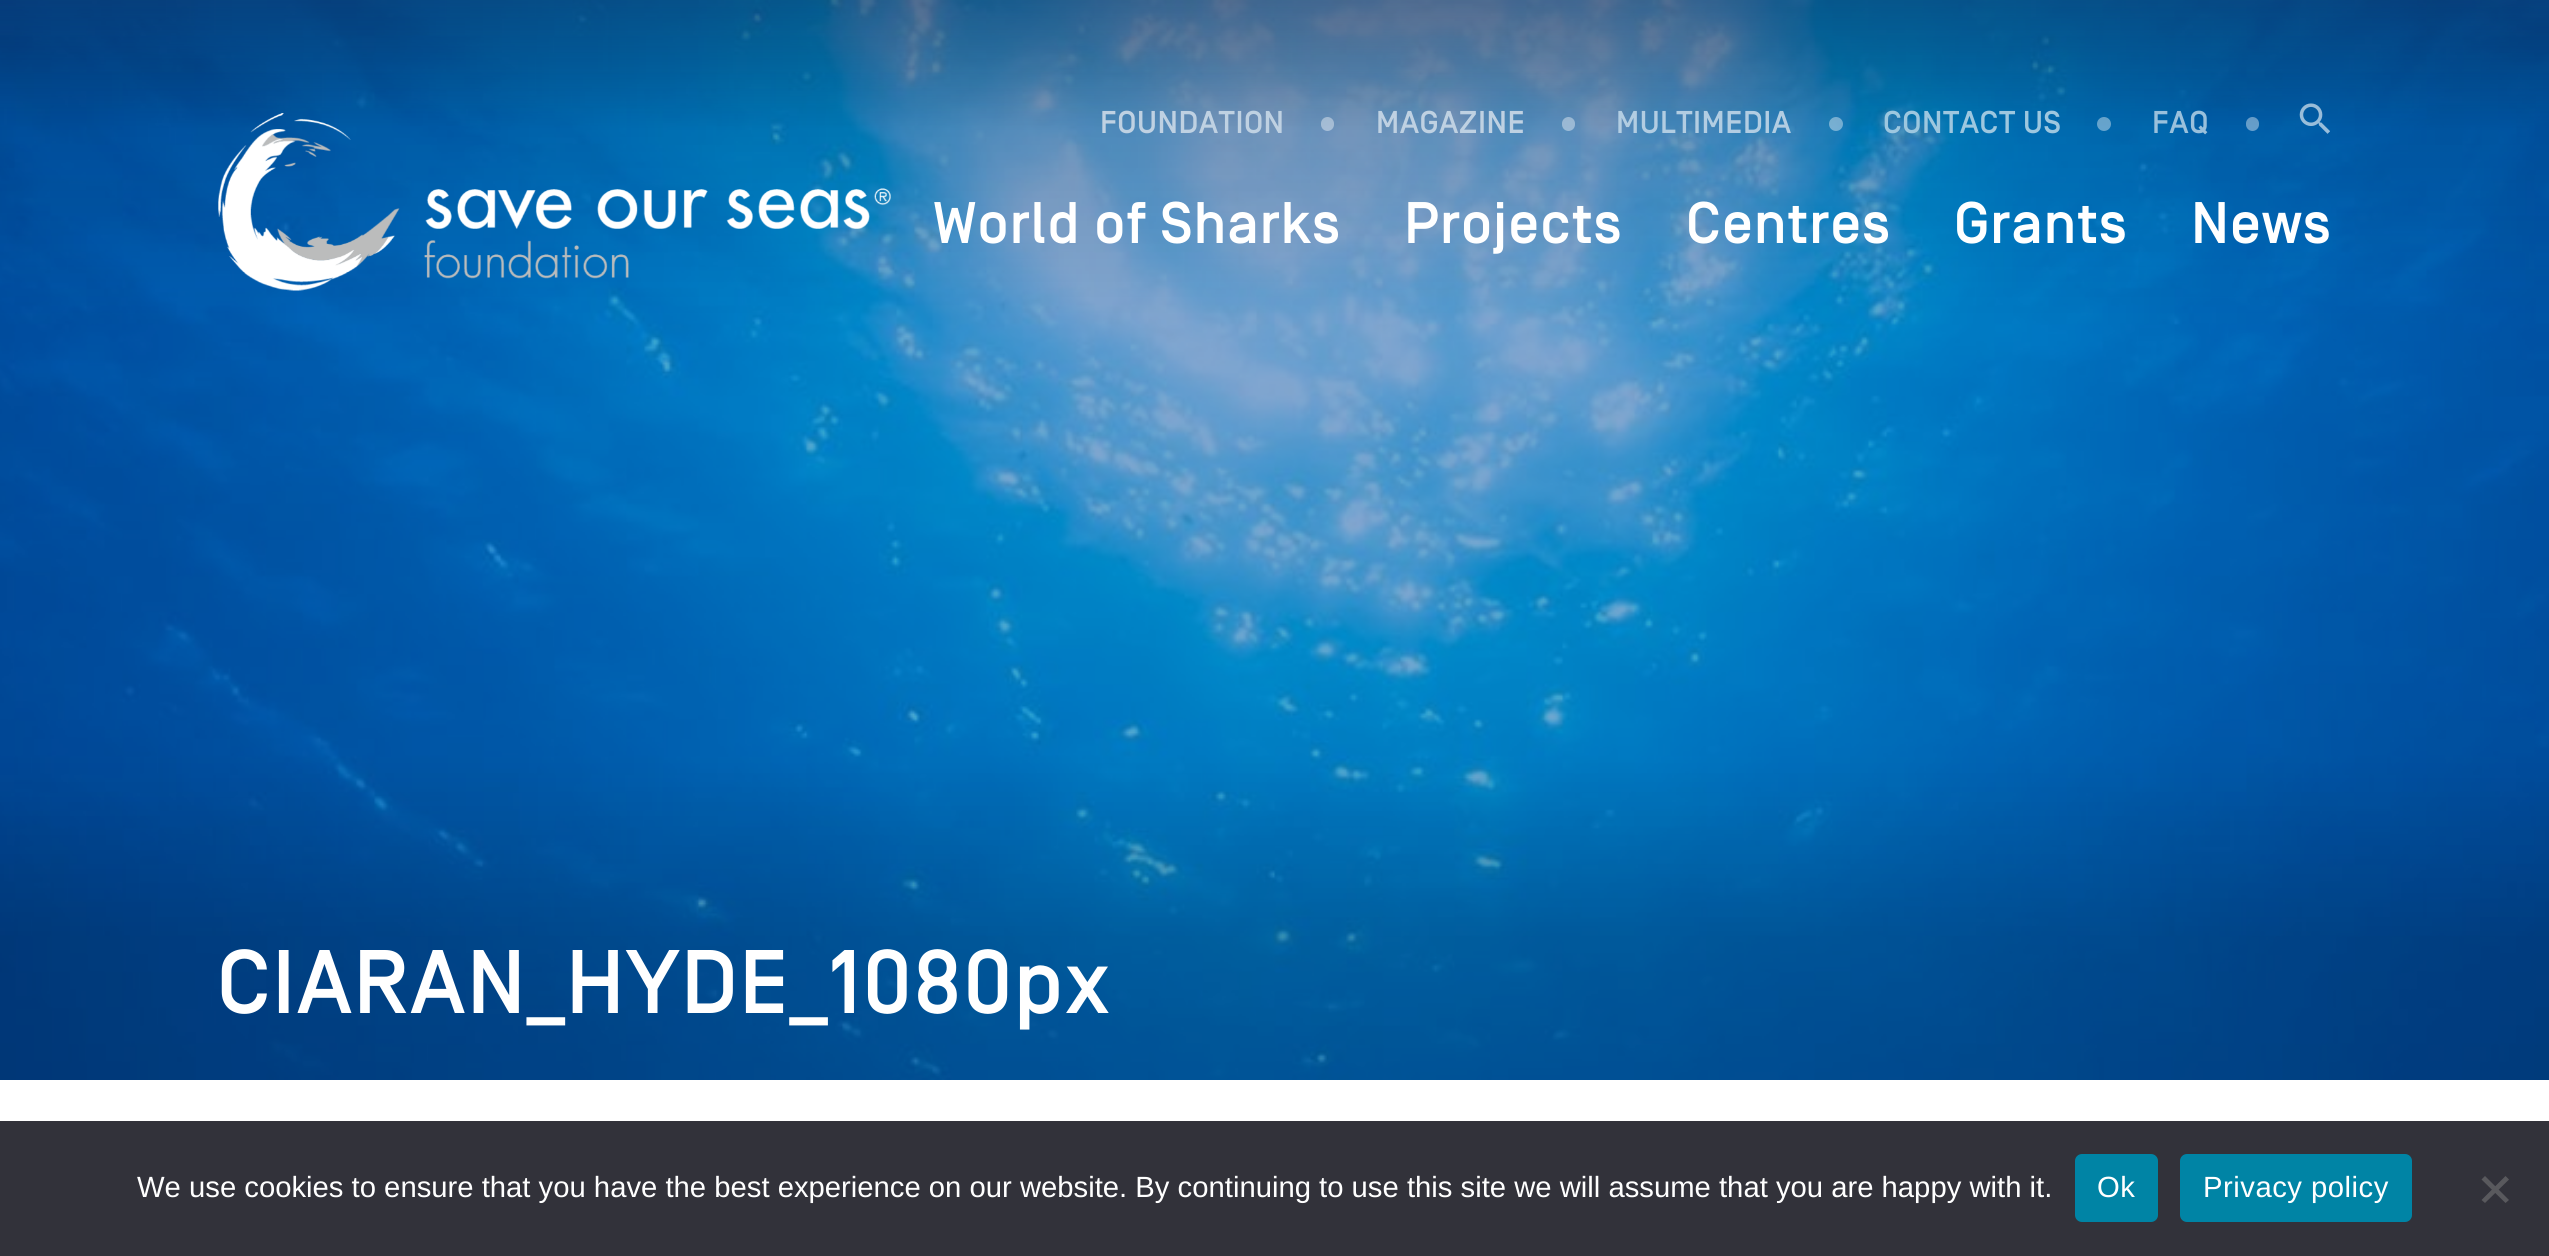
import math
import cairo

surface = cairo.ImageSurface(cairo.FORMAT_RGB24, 2549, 1256)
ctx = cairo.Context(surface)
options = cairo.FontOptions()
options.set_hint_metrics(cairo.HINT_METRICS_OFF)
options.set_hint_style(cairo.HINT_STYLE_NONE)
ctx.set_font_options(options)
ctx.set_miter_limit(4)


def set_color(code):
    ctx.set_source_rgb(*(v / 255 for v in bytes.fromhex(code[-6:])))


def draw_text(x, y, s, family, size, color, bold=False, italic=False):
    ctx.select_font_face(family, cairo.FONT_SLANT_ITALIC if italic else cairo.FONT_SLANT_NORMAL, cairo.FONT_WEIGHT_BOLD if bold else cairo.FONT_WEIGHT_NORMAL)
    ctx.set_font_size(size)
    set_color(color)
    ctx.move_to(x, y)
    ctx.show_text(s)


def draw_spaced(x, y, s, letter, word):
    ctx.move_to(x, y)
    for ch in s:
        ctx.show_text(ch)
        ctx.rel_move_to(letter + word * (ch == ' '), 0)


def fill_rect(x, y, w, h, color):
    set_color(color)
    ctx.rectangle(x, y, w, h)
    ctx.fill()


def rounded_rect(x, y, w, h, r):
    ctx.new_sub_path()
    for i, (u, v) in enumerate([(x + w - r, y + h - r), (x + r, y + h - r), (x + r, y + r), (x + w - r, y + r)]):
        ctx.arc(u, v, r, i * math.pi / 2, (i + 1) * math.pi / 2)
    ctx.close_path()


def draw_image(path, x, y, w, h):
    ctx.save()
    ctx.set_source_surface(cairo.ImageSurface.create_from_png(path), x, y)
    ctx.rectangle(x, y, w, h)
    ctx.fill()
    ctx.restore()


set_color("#ffffff")
ctx.paint()
fill_rect(0, 0, 2549, 1080, "#004da1")
draw_image("assets/img3.png", 0, 0, 2549, 1080)
gradient = cairo.LinearGradient(1275, 0, 1275, 1080)
gradient.add_color_stop_rgba(0, 0.059, 0.094, 0.2, 0.4)
gradient.add_color_stop_rgba(0.12, 0, 0, 0, 0.1)
gradient.add_color_stop_rgba(0.3, 0, 0, 0, 0)
gradient.add_color_stop_rgba(0.7, 0, 0, 0, 0)
gradient.add_color_stop_rgba(0.87, 0, 0, 0, 0.15)
ctx.set_source(gradient)
ctx.rectangle(0, 0, 2549, 1080)
ctx.fill()
draw_image("assets/img1.png", 218, 113, 673, 178)
ctx.select_font_face("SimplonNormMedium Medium")
ctx.set_font_size(31.5)
set_color("#bfd1e2")
draw_spaced(1100, 133, "FOUNDATION", 0.5, 0)
ctx.set_source_rgba(1, 1, 1, 0.4)
rounded_rect(1321, 117, 13, 14, 6.5)
ctx.fill()
set_color("#bfd1e2")
draw_spaced(1376, 133, "MAGAZINE", 0.5, 0)
ctx.set_source_rgba(1, 1, 1, 0.4)
rounded_rect(1562, 117, 13, 14, 6.5)
ctx.fill()
set_color("#b2cde2")
draw_spaced(1616, 133, "MULTIMEDIA", 0.5, 0)
ctx.set_source_rgba(1, 1, 1, 0.4)
ctx.new_path()
ctx.arc(1836, 124, 7, 0, 2 * math.pi)
ctx.fill()
set_color("#9dc7df")
draw_spaced(1883, 133, "CONTACT US", 0.5, 0)
ctx.set_source_rgba(1, 1, 1, 0.4)
ctx.new_path()
ctx.arc(2104, 124, 7, 0, 2 * math.pi)
ctx.fill()
set_color("#99c0dc")
draw_spaced(2152, 133, "FAQ", 0.5, 0)
ctx.set_source_rgba(1, 1, 1, 0.4)
rounded_rect(2246, 117, 13, 14, 6.5)
ctx.fill()
draw_image("assets/img2.png", 2299, 103, 31, 31)
ctx.set_font_size(58.5)
set_color("#ffffff")
draw_spaced(933, 243, "World of Sharks", 0.75, 0)
draw_spaced(1404, 243, "Projects", 0.75, 0)
draw_spaced(1686, 243, "Centres", 0.75, 0)
draw_spaced(1954, 243, "Grants", 0.75, 0)
draw_spaced(2191, 243, "News", 0.75, 0)
ctx.set_font_size(90)
draw_spaced(217, 1013, "CIARAN_HYDE_1080px", 1.5, 0)
fill_rect(0, 1121, 2549, 135, "#32323a")
draw_text(137, 1197, "We use cookies to ensure that you have the best experience on our website. By continuing to use this site we will assume that you are happy with it.", "Liberation Sans", 29.25, "#ffffff")
set_color("#0084a5")
rounded_rect(2075, 1154, 83, 68, 7)
ctx.fill()
set_color("#ffffff")
draw_spaced(2097, 1197, "Ok", 0.5, 0)
set_color("#0084a5")
rounded_rect(2180, 1154, 232, 68, 7)
ctx.fill()
set_color("#ffffff")
draw_spaced(2203, 1197, "Privacy policy", 0.5, 0)
set_color("#59595d")
ctx.new_path()
ctx.move_to(2505.5, 1176)
ctx.line_to(2509, 1179.5)
ctx.line_to(2485, 1203)
ctx.line_to(2481.5, 1200)
ctx.close_path()
ctx.fill()
ctx.new_path()
ctx.move_to(2481.5, 1179.5)
ctx.line_to(2485, 1176)
ctx.line_to(2509, 1200)
ctx.line_to(2505.5, 1203)
ctx.close_path()
ctx.fill()
surface.write_to_png("output.png")
